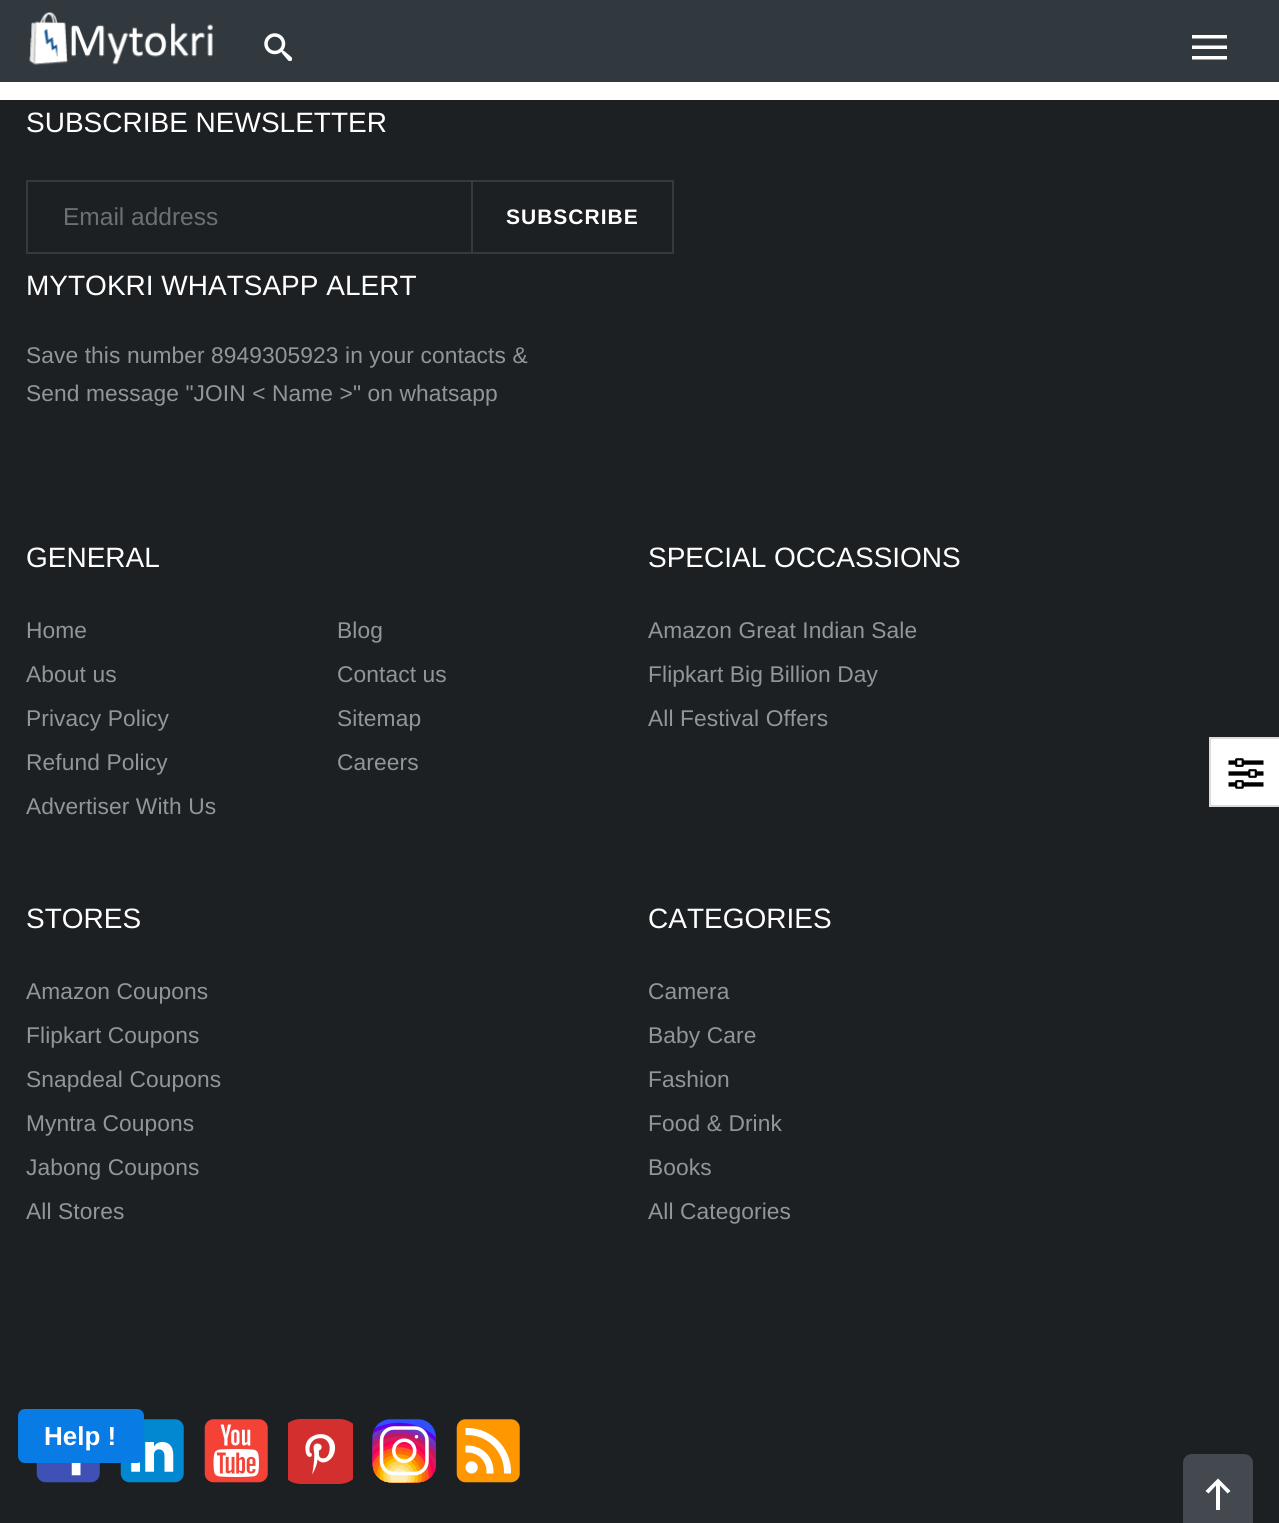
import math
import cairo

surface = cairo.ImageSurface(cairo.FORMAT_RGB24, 1279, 1523)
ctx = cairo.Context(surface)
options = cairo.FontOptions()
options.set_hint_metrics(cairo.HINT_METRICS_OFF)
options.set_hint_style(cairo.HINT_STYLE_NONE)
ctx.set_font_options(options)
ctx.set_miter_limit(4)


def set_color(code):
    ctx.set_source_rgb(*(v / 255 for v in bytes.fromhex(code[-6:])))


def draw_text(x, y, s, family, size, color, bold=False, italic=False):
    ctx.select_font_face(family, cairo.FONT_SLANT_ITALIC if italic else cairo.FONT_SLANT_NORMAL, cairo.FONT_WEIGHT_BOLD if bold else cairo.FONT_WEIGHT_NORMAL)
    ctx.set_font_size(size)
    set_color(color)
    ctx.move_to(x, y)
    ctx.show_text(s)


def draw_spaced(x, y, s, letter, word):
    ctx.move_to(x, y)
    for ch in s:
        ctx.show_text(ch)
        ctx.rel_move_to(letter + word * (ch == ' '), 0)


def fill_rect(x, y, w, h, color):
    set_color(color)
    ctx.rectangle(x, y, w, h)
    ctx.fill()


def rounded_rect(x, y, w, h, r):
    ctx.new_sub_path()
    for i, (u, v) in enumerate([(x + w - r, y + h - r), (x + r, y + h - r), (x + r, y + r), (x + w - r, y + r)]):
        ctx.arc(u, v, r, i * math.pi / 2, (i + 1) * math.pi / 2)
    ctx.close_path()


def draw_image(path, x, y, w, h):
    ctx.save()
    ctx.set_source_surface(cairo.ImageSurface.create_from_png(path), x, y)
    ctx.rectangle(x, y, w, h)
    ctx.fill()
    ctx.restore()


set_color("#1c2023")
ctx.paint()
fill_rect(0, 0, 1279, 82, "#31393f")
draw_image("assets/img1.png", 29, 12, 184, 54)
draw_image("assets/img2.png", 264, 33, 28, 28)
set_color("#ffffff")
ctx.new_path()
ctx.move_to(1192, 35)
ctx.line_to(1227, 35)
ctx.line_to(1227, 38.5)
ctx.line_to(1192, 38.5)
ctx.close_path()
ctx.move_to(1192, 45.5)
ctx.line_to(1227, 45.5)
ctx.line_to(1227, 49)
ctx.line_to(1192, 49)
ctx.close_path()
ctx.move_to(1192, 56)
ctx.line_to(1227, 56)
ctx.line_to(1227, 59.5)
ctx.line_to(1192, 59.5)
ctx.close_path()
ctx.fill()
fill_rect(0, 82, 1279, 18, "#ffffff")
draw_text(26, 132, "SUBSCRIBE NEWSLETTER", "Liberation Sans", 28, "#ffffff")
ctx.rectangle(27, 181, 646, 72)
set_color("#353a3e")
ctx.stroke()
draw_text(63, 225, "Email address", "Liberation Sans", 24.5, "#6b7074")
ctx.rectangle(472, 181, 201, 72)
set_color("#353a3e")
ctx.stroke()
ctx.select_font_face("Liberation Sans", cairo.FONT_SLANT_NORMAL, cairo.FONT_WEIGHT_BOLD)
ctx.set_font_size(21)
set_color("#ffffff")
draw_spaced(506, 224, "SUBSCRIBE", 1, 0)
draw_text(26, 295, "MYTOKRI WHATSAPP ALERT", "Liberation Sans", 28, "#ffffff")
ctx.set_font_size(22.75)
set_color("#90969a")
draw_spaced(26, 363, "Save this number 8949305923 in your contacts &", 0.1, 0)
draw_spaced(26, 401, "Send message \"JOIN < Name >\" on whatsapp", 0.1, 0)
draw_text(26, 567, "GENERAL", "Liberation Sans", 28, "#ffffff")
ctx.set_font_size(22.75)
set_color("#90969a")
draw_spaced(26, 638, "Home", 0.1, 0)
draw_spaced(26, 682, "About us", 0.1, 0)
draw_spaced(26, 726, "Privacy Policy", 0.1, 0)
draw_spaced(26, 770, "Refund Policy", 0.1, 0)
draw_spaced(26, 814, "Advertiser With Us", 0.1, 0)
draw_spaced(337, 638, "Blog", 0.1, 0)
draw_spaced(337, 682, "Contact us", 0.1, 0)
draw_spaced(337, 726, "Sitemap", 0.1, 0)
draw_spaced(337, 770, "Careers", 0.1, 0)
draw_text(648, 567, "SPECIAL OCCASSIONS", "Liberation Sans", 28, "#ffffff")
ctx.set_font_size(22.75)
set_color("#90969a")
draw_spaced(648, 638, "Amazon Great Indian Sale", 0.1, 0)
draw_spaced(648, 682, "Flipkart Big Billion Day", 0.1, 0)
draw_spaced(648, 726, "All Festival Offers", 0.1, 0)
draw_text(26, 928, "STORES", "Liberation Sans", 28, "#ffffff")
ctx.set_font_size(22.75)
set_color("#90969a")
draw_spaced(26, 999, "Amazon Coupons", 0.1, 0)
draw_spaced(26, 1043, "Flipkart Coupons", 0.1, 0)
draw_spaced(26, 1087, "Snapdeal Coupons", 0.1, 0)
draw_spaced(26, 1131, "Myntra Coupons", 0.1, 0)
draw_spaced(26, 1175, "Jabong Coupons", 0.1, 0)
draw_spaced(26, 1219, "All Stores", 0.1, 0)
draw_text(648, 928, "CATEGORIES", "Liberation Sans", 28, "#ffffff")
ctx.set_font_size(22.75)
set_color("#90969a")
draw_spaced(648, 999, "Camera", 0.1, 0)
draw_spaced(648, 1043, "Baby Care", 0.1, 0)
draw_spaced(648, 1087, "Fashion", 0.1, 0)
draw_spaced(648, 1131, "Food & Drink", 0.1, 0)
draw_spaced(648, 1175, "Books", 0.1, 0)
draw_spaced(648, 1219, "All Categories", 0.1, 0)
draw_image("assets/img3.png", 36, 1463, 64, 20)
draw_image("assets/img4.png", 120, 1419, 64, 64)
draw_image("assets/img5.png", 204, 1419, 64, 64)
draw_image("assets/img6.png", 288, 1419, 65, 65)
draw_image("assets/img7.png", 372, 1419, 64, 64)
draw_image("assets/img8.png", 456, 1419, 64, 64)
set_color("#097be5")
rounded_rect(18, 1409, 126, 54, 7)
ctx.fill()
draw_text(44, 1445, "Help !", "Liberation Sans", 26, "#ffffff", bold=True)
fill_rect(1211, 739, 68, 66, "#ffffff")
fill_rect(1209, 737, 70, 2, "#dcdcda")
fill_rect(1209, 805, 70, 2, "#dcdcda")
fill_rect(1209, 737, 2, 70, "#dcdcda")
draw_image("assets/img9.png", 1228, 758, 36, 31)
set_color("#43494e")
ctx.new_path()
ctx.move_to(1192, 1454)
ctx.line_to(1244, 1454)
ctx.curve_to(1249, 1454, 1253, 1458, 1253, 1463)
ctx.line_to(1253, 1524)
ctx.line_to(1183, 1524)
ctx.line_to(1183, 1463)
ctx.curve_to(1183, 1458, 1187, 1454, 1192, 1454)
ctx.close_path()
ctx.fill()
set_color("#ffffff")
ctx.new_path()
ctx.move_to(1218, 1478.5)
ctx.line_to(1205.5, 1491)
ctx.line_to(1208.5, 1493.5)
ctx.line_to(1216, 1485.5)
ctx.line_to(1216, 1510)
ctx.line_to(1220, 1510)
ctx.line_to(1220, 1485.5)
ctx.line_to(1227.5, 1493.5)
ctx.line_to(1230.5, 1491)
ctx.close_path()
ctx.fill()
surface.write_to_png("output.png")
